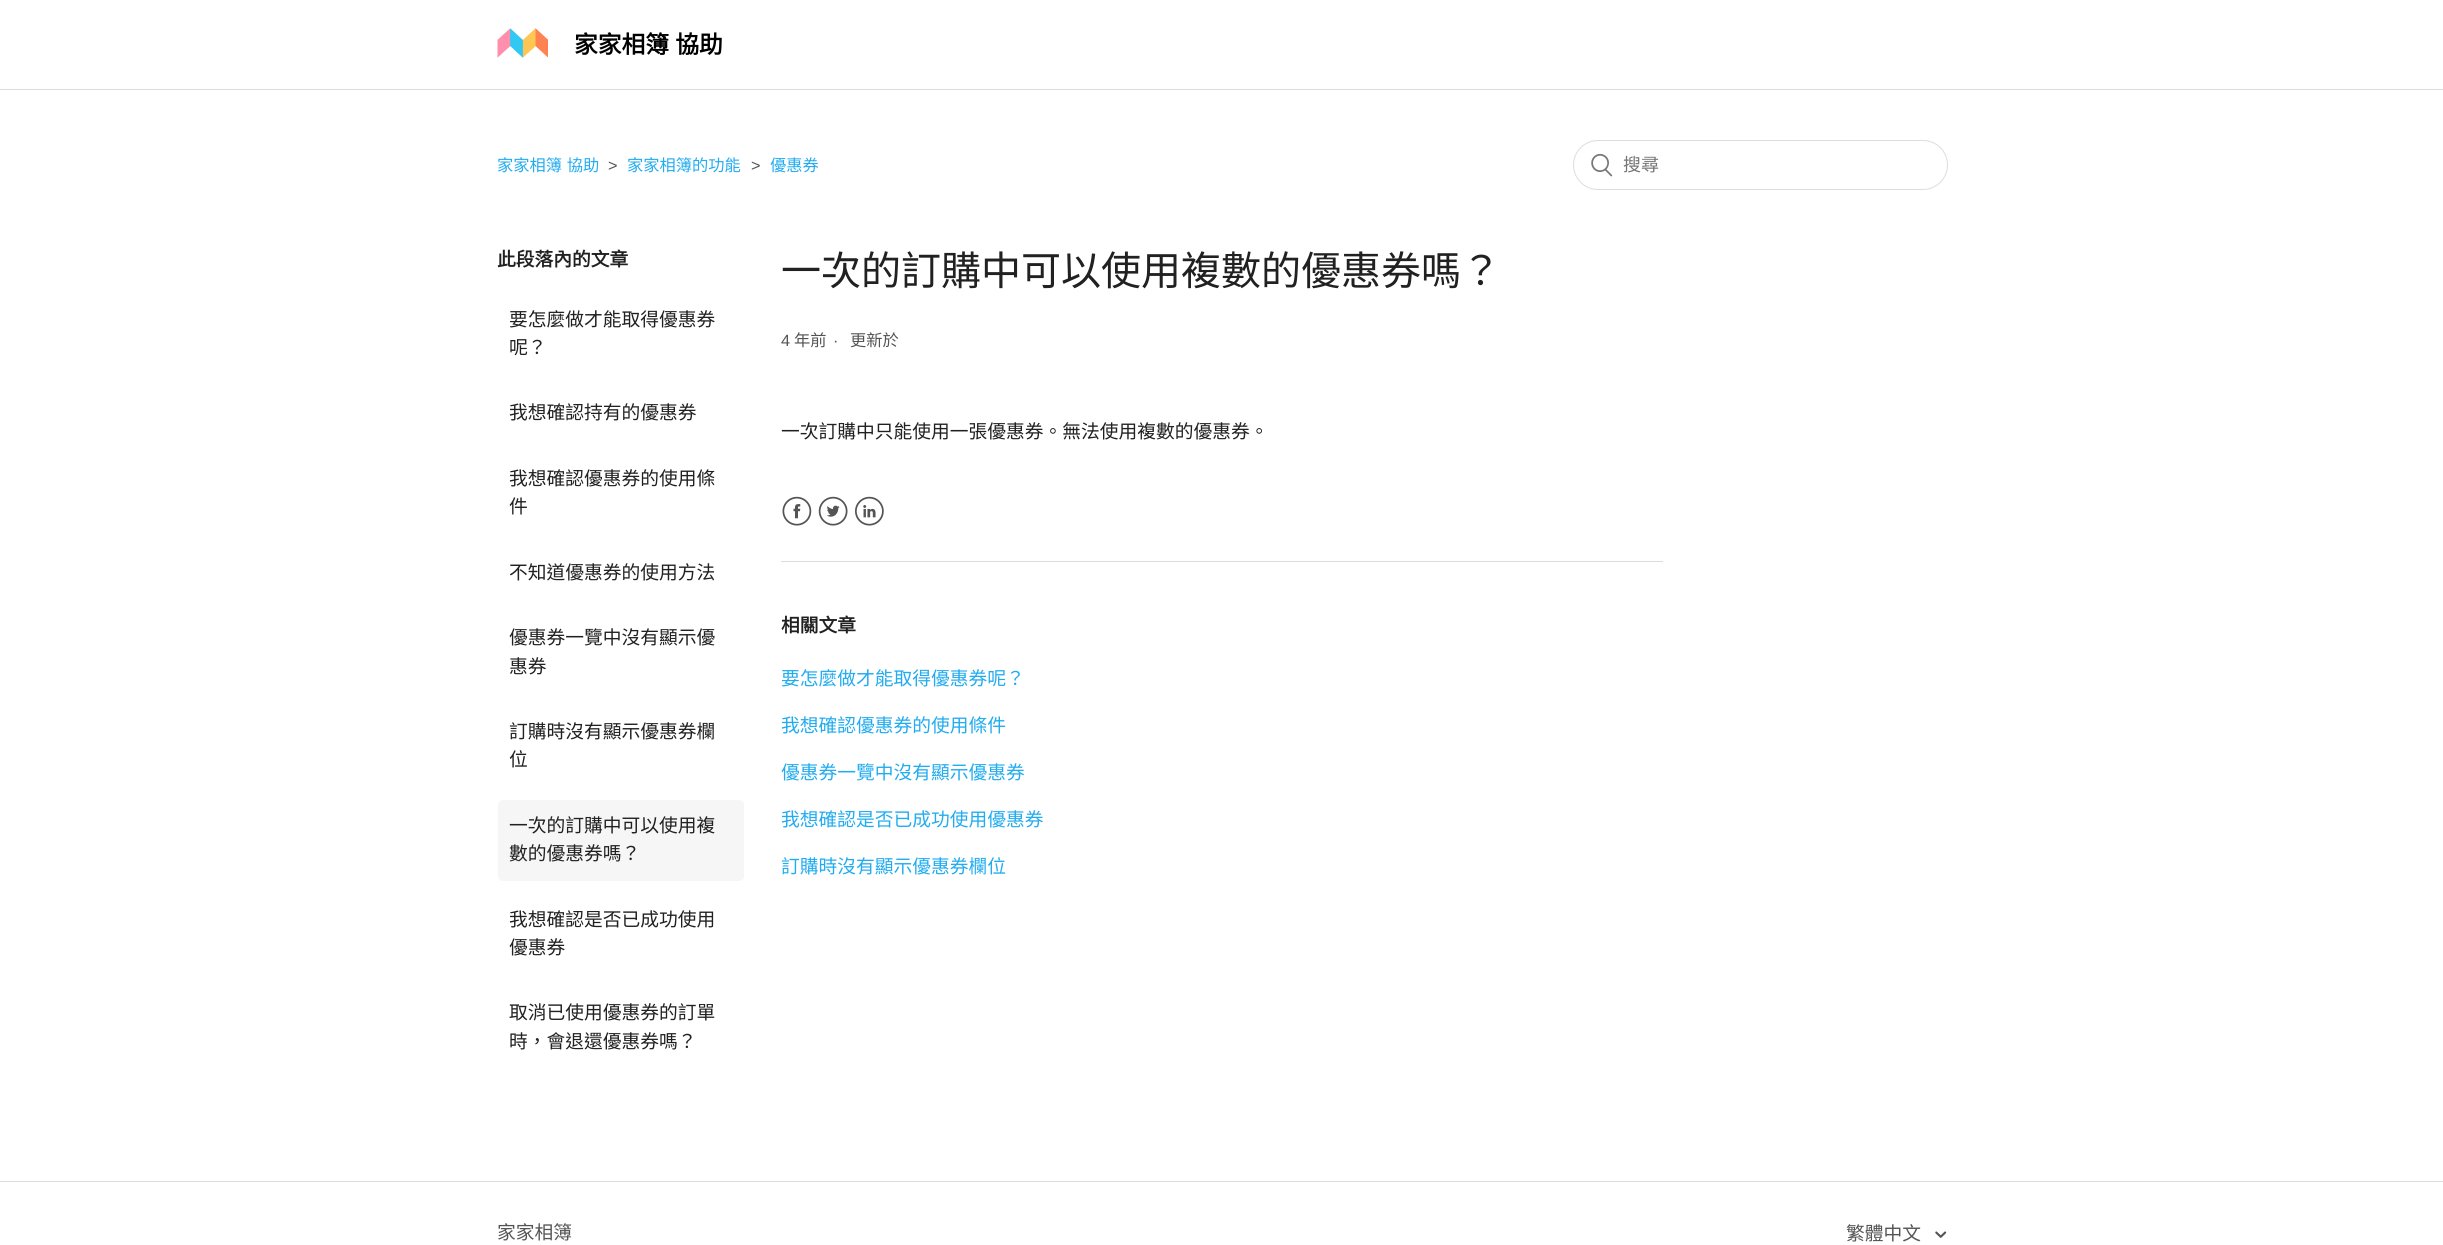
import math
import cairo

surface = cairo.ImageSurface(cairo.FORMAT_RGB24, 2443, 1245)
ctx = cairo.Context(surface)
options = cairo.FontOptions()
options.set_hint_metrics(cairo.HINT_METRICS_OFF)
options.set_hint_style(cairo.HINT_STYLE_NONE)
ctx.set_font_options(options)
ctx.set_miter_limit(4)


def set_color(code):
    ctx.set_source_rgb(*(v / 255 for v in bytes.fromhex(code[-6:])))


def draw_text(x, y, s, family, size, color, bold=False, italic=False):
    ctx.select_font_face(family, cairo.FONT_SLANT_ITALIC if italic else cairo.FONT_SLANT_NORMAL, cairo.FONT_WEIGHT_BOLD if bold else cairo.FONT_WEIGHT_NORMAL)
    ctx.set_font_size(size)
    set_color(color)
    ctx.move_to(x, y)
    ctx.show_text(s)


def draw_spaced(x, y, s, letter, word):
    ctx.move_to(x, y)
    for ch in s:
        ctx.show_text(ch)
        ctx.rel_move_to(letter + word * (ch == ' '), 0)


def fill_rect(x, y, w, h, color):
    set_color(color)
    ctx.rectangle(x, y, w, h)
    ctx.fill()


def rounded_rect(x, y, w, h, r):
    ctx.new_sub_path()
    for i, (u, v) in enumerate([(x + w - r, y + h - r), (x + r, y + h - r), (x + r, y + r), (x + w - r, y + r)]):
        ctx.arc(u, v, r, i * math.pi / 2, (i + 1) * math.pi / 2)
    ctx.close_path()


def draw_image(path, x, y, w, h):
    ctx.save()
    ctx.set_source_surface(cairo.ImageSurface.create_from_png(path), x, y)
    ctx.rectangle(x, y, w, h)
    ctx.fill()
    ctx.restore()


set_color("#ffffff")
ctx.paint()
draw_image("assets/img1.png", 497, 28, 51, 30)
ctx.select_font_face("Noto Sans CJK TC", cairo.FONT_SLANT_NORMAL, cairo.FONT_WEIGHT_BOLD)
ctx.set_font_size(23.75)
set_color("#000000")
draw_spaced(574, 53, "家家相簿 協助", 0, 1)
fill_rect(0, 89, 2443, 1, "#dddddd")
ctx.select_font_face("Noto Sans CJK TC")
ctx.set_font_size(16.25)
set_color("#22acf0")
draw_spaced(497, 171, "家家相簿 協助", 0, 1)
draw_text(608, 171, ">", "Liberation Sans", 16.25, "#545454")
draw_text(627, 171, "家家相簿的功能", "Noto Sans CJK TC", 16.25, "#22acf0")
draw_text(751, 171, ">", "Liberation Sans", 16.25, "#545454")
draw_text(770, 171, "優惠券", "Noto Sans CJK TC", 16.25, "#22acf0")
rounded_rect(1573.5, 140.5, 374, 49, 24.5)
set_color("#dddddd")
ctx.set_line_width(1)
ctx.stroke()
draw_image("assets/img2.png", 1591, 153, 22, 24)
draw_text(1623, 171, "搜尋", "Noto Sans CJK TC", 18, "#757575")
draw_text(497, 266, "此段落內的文章", "Noto Sans CJK TC", 18.75, "#212121", bold=True)
draw_text(509, 326, "要怎麼做才能取得優惠券", "Noto Sans CJK TC", 18.75, "#212121")
draw_text(509, 354, "呢？", "Noto Sans CJK TC", 18.75, "#212121")
draw_text(509, 419, "我想確認持有的優惠券", "Noto Sans CJK TC", 18.75, "#212121")
draw_text(509, 485, "我想確認優惠券的使用條", "Noto Sans CJK TC", 18.75, "#212121")
draw_text(509, 513, "件", "Noto Sans CJK TC", 18.75, "#212121")
draw_text(509, 579, "不知道優惠券的使用方法", "Noto Sans CJK TC", 18.75, "#212121")
draw_text(509, 644, "優惠券一覽中沒有顯示優", "Noto Sans CJK TC", 18.75, "#212121")
draw_text(509, 673, "惠券", "Noto Sans CJK TC", 18.75, "#212121")
draw_text(509, 738, "訂購時沒有顯示優惠券欄", "Noto Sans CJK TC", 18.75, "#212121")
draw_text(509, 766, "位", "Noto Sans CJK TC", 18.75, "#212121")
set_color("#f6f6f6")
rounded_rect(498, 800, 246, 81, 5)
ctx.fill()
draw_text(509, 832, "一次的訂購中可以使用複", "Noto Sans CJK TC", 18.75, "#212121")
draw_text(509, 860, "數的優惠券嗎？", "Noto Sans CJK TC", 18.75, "#212121")
draw_text(509, 926, "我想確認是否已成功使用", "Noto Sans CJK TC", 18.75, "#212121")
draw_text(509, 954, "優惠券", "Noto Sans CJK TC", 18.75, "#212121")
draw_text(509, 1019, "取消已使用優惠券的訂單", "Noto Sans CJK TC", 18.75, "#212121")
draw_text(509, 1048, "時，會退還優惠券嗎？", "Noto Sans CJK TC", 18.75, "#212121")
draw_text(781, 285, "一次的訂購中可以使用複數的優惠券嗎？", "Noto Sans CJK TC", 40, "#212121")
draw_text(781, 346, "4", "Liberation Sans", 16.25, "#545454")
draw_text(794, 346, "年前", "Noto Sans CJK TC", 16.25, "#545454")
draw_text(833, 346, "·", "Liberation Sans", 16.25, "#545454")
draw_text(850, 346, "更新於", "Noto Sans CJK TC", 16.25, "#545454")
draw_text(781, 438, "一次訂購中只能使用一張優惠券。無法使用複數的優惠券。", "Noto Sans CJK TC", 18.75, "#212121")
draw_image("assets/img3.png", 782, 496, 30, 30)
draw_image("assets/img4.png", 818, 496, 30, 30)
draw_image("assets/img5.png", 855, 496, 29, 30)
fill_rect(781, 561, 882, 1, "#dddddd")
draw_text(781, 632, "相關文章", "Noto Sans CJK TC", 18.75, "#212121", bold=True)
draw_text(781, 685, "要怎麼做才能取得優惠券呢？", "Noto Sans CJK TC", 18.75, "#22acf0")
draw_text(781, 732, "我想確認優惠券的使用條件", "Noto Sans CJK TC", 18.75, "#22acf0")
draw_text(781, 779, "優惠券一覽中沒有顯示優惠券", "Noto Sans CJK TC", 18.75, "#22acf0")
draw_text(781, 826, "我想確認是否已成功使用優惠券", "Noto Sans CJK TC", 18.75, "#22acf0")
draw_text(781, 873, "訂購時沒有顯示優惠券欄位", "Noto Sans CJK TC", 18.75, "#22acf0")
fill_rect(0, 1181, 2443, 1, "#dddddd")
draw_text(497, 1239, "家家相簿", "Noto Sans CJK TC", 18.75, "#545454")
draw_text(1846, 1240, "繁體中文", "Noto Sans CJK TC", 18.75, "#545454")
draw_image("assets/img6.png", 1935, 1231, 12, 7)
surface.write_to_png("output.png")
